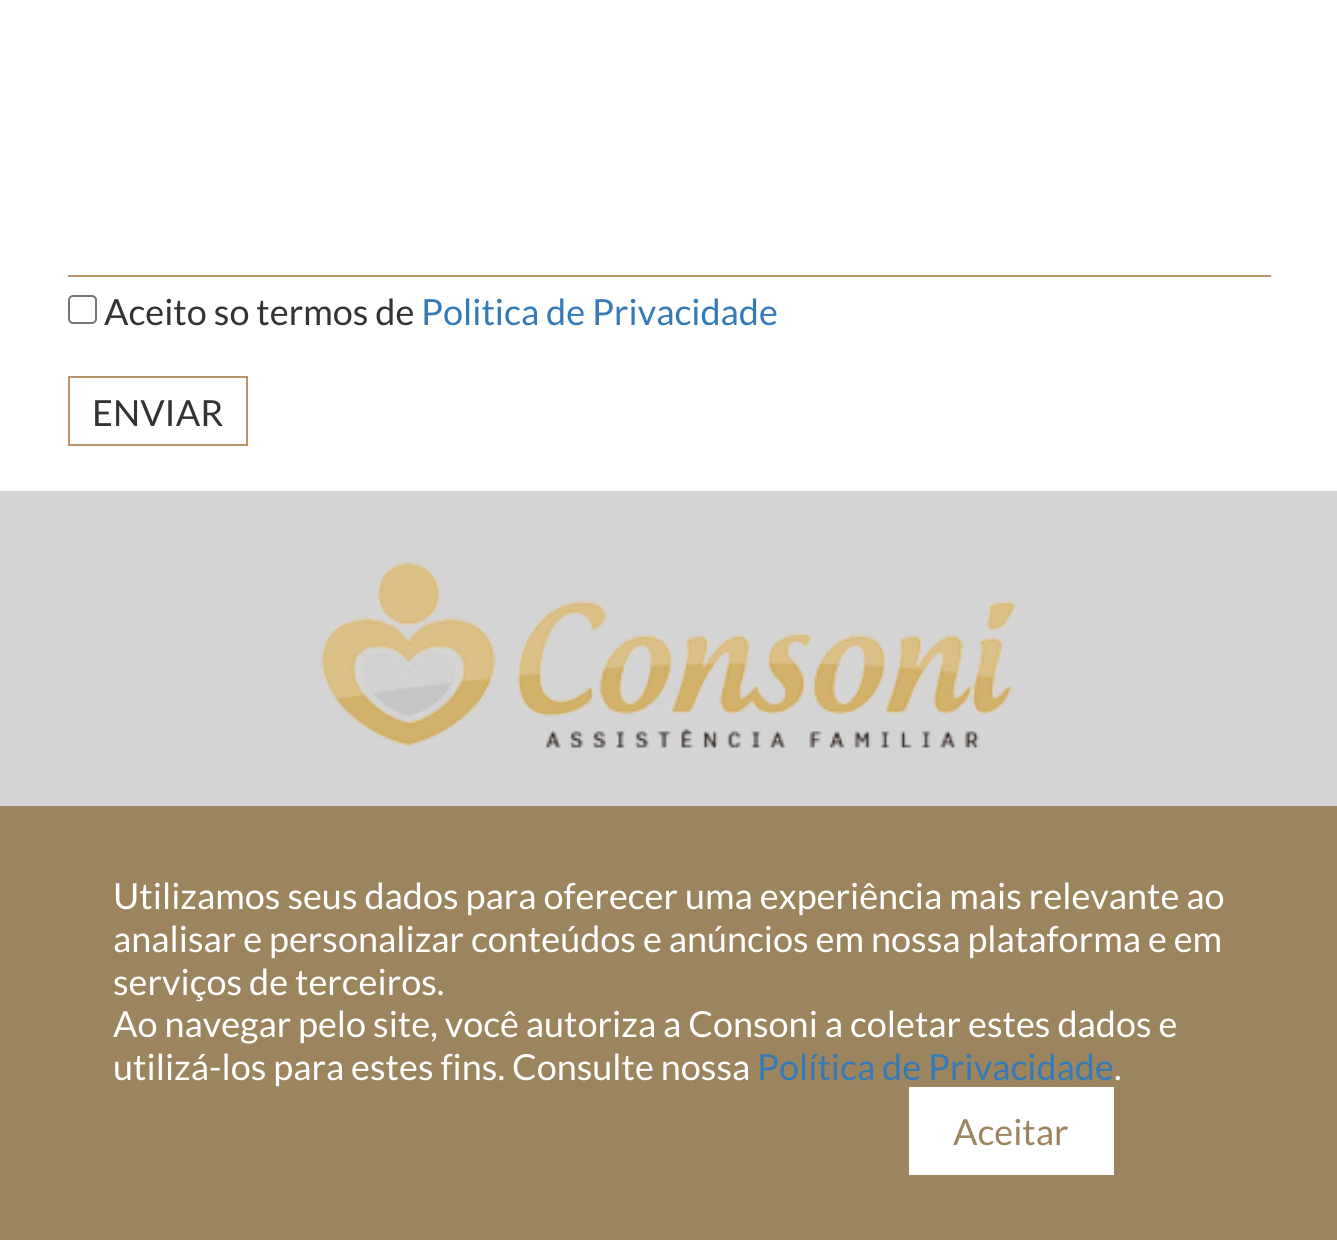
import math
import cairo

surface = cairo.ImageSurface(cairo.FORMAT_RGB24, 1337, 1240)
ctx = cairo.Context(surface)
options = cairo.FontOptions()
options.set_hint_metrics(cairo.HINT_METRICS_OFF)
options.set_hint_style(cairo.HINT_STYLE_NONE)
ctx.set_font_options(options)
ctx.set_miter_limit(4)


def set_color(code):
    ctx.set_source_rgb(*(v / 255 for v in bytes.fromhex(code[-6:])))


def draw_text(x, y, s, family, size, color, bold=False, italic=False):
    ctx.select_font_face(family, cairo.FONT_SLANT_ITALIC if italic else cairo.FONT_SLANT_NORMAL, cairo.FONT_WEIGHT_BOLD if bold else cairo.FONT_WEIGHT_NORMAL)
    ctx.set_font_size(size)
    set_color(color)
    ctx.move_to(x, y)
    ctx.show_text(s)


def fill_rect(x, y, w, h, color):
    set_color(color)
    ctx.rectangle(x, y, w, h)
    ctx.fill()


def rounded_rect(x, y, w, h, r):
    ctx.new_sub_path()
    for i, (u, v) in enumerate([(x + w - r, y + h - r), (x + r, y + h - r), (x + r, y + r), (x + w - r, y + r)]):
        ctx.arc(u, v, r, i * math.pi / 2, (i + 1) * math.pi / 2)
    ctx.close_path()


def draw_image(path, x, y, w, h):
    ctx.save()
    ctx.set_source_surface(cairo.ImageSurface.create_from_png(path), x, y)
    ctx.rectangle(x, y, w, h)
    ctx.fill()
    ctx.restore()


set_color("#ffffff")
ctx.paint()
fill_rect(68, 275, 1203, 2, "#b89669")
rounded_rect(69, 296, 27, 27, 4)
set_color("#767676")
ctx.stroke()
draw_text(104, 325, "Aceito so termos de", "Lato", 36, "#333333")
draw_text(421, 325, "Politica de Privacidade", "Lato", 36, "#337ab7")
ctx.rectangle(69, 377, 178, 68)
set_color("#b89669")
ctx.stroke()
draw_text(92, 426, "ENVIAR", "Lato", 36, "#333333")
fill_rect(0, 491, 1337, 315, "#d4d4d4")
draw_image("assets/img1.png", 321, 562, 695, 186)
fill_rect(0, 806, 1337, 434, "#9c845f")
draw_text(113, 909, "Utilizamos seus dados para oferecer uma experiência mais relevante ao", "Lato", 36, "#ffffff")
draw_text(113, 952, "analisar e personalizar conteúdos e anúncios em nossa plataforma e em", "Lato", 36, "#ffffff")
draw_text(113, 995, "serviços de terceiros.", "Lato", 36, "#ffffff")
draw_text(113, 1037, "Ao navegar pelo site, você autoriza a Consoni a coletar estes dados e", "Lato", 36, "#ffffff")
draw_text(113, 1080, "utilizá-los para estes fins. Consulte nossa", "Lato", 36, "#ffffff")
draw_text(757, 1080, "Política de Privacidade", "Lato", 36, "#337ab7")
draw_text(1114, 1080, ".", "Lato", 36, "#ffffff")
fill_rect(909, 1087, 205, 88, "#ffffff")
draw_text(953, 1145, "Aceitar", "Lato", 36, "#9c845f")
surface.write_to_png("output.png")
